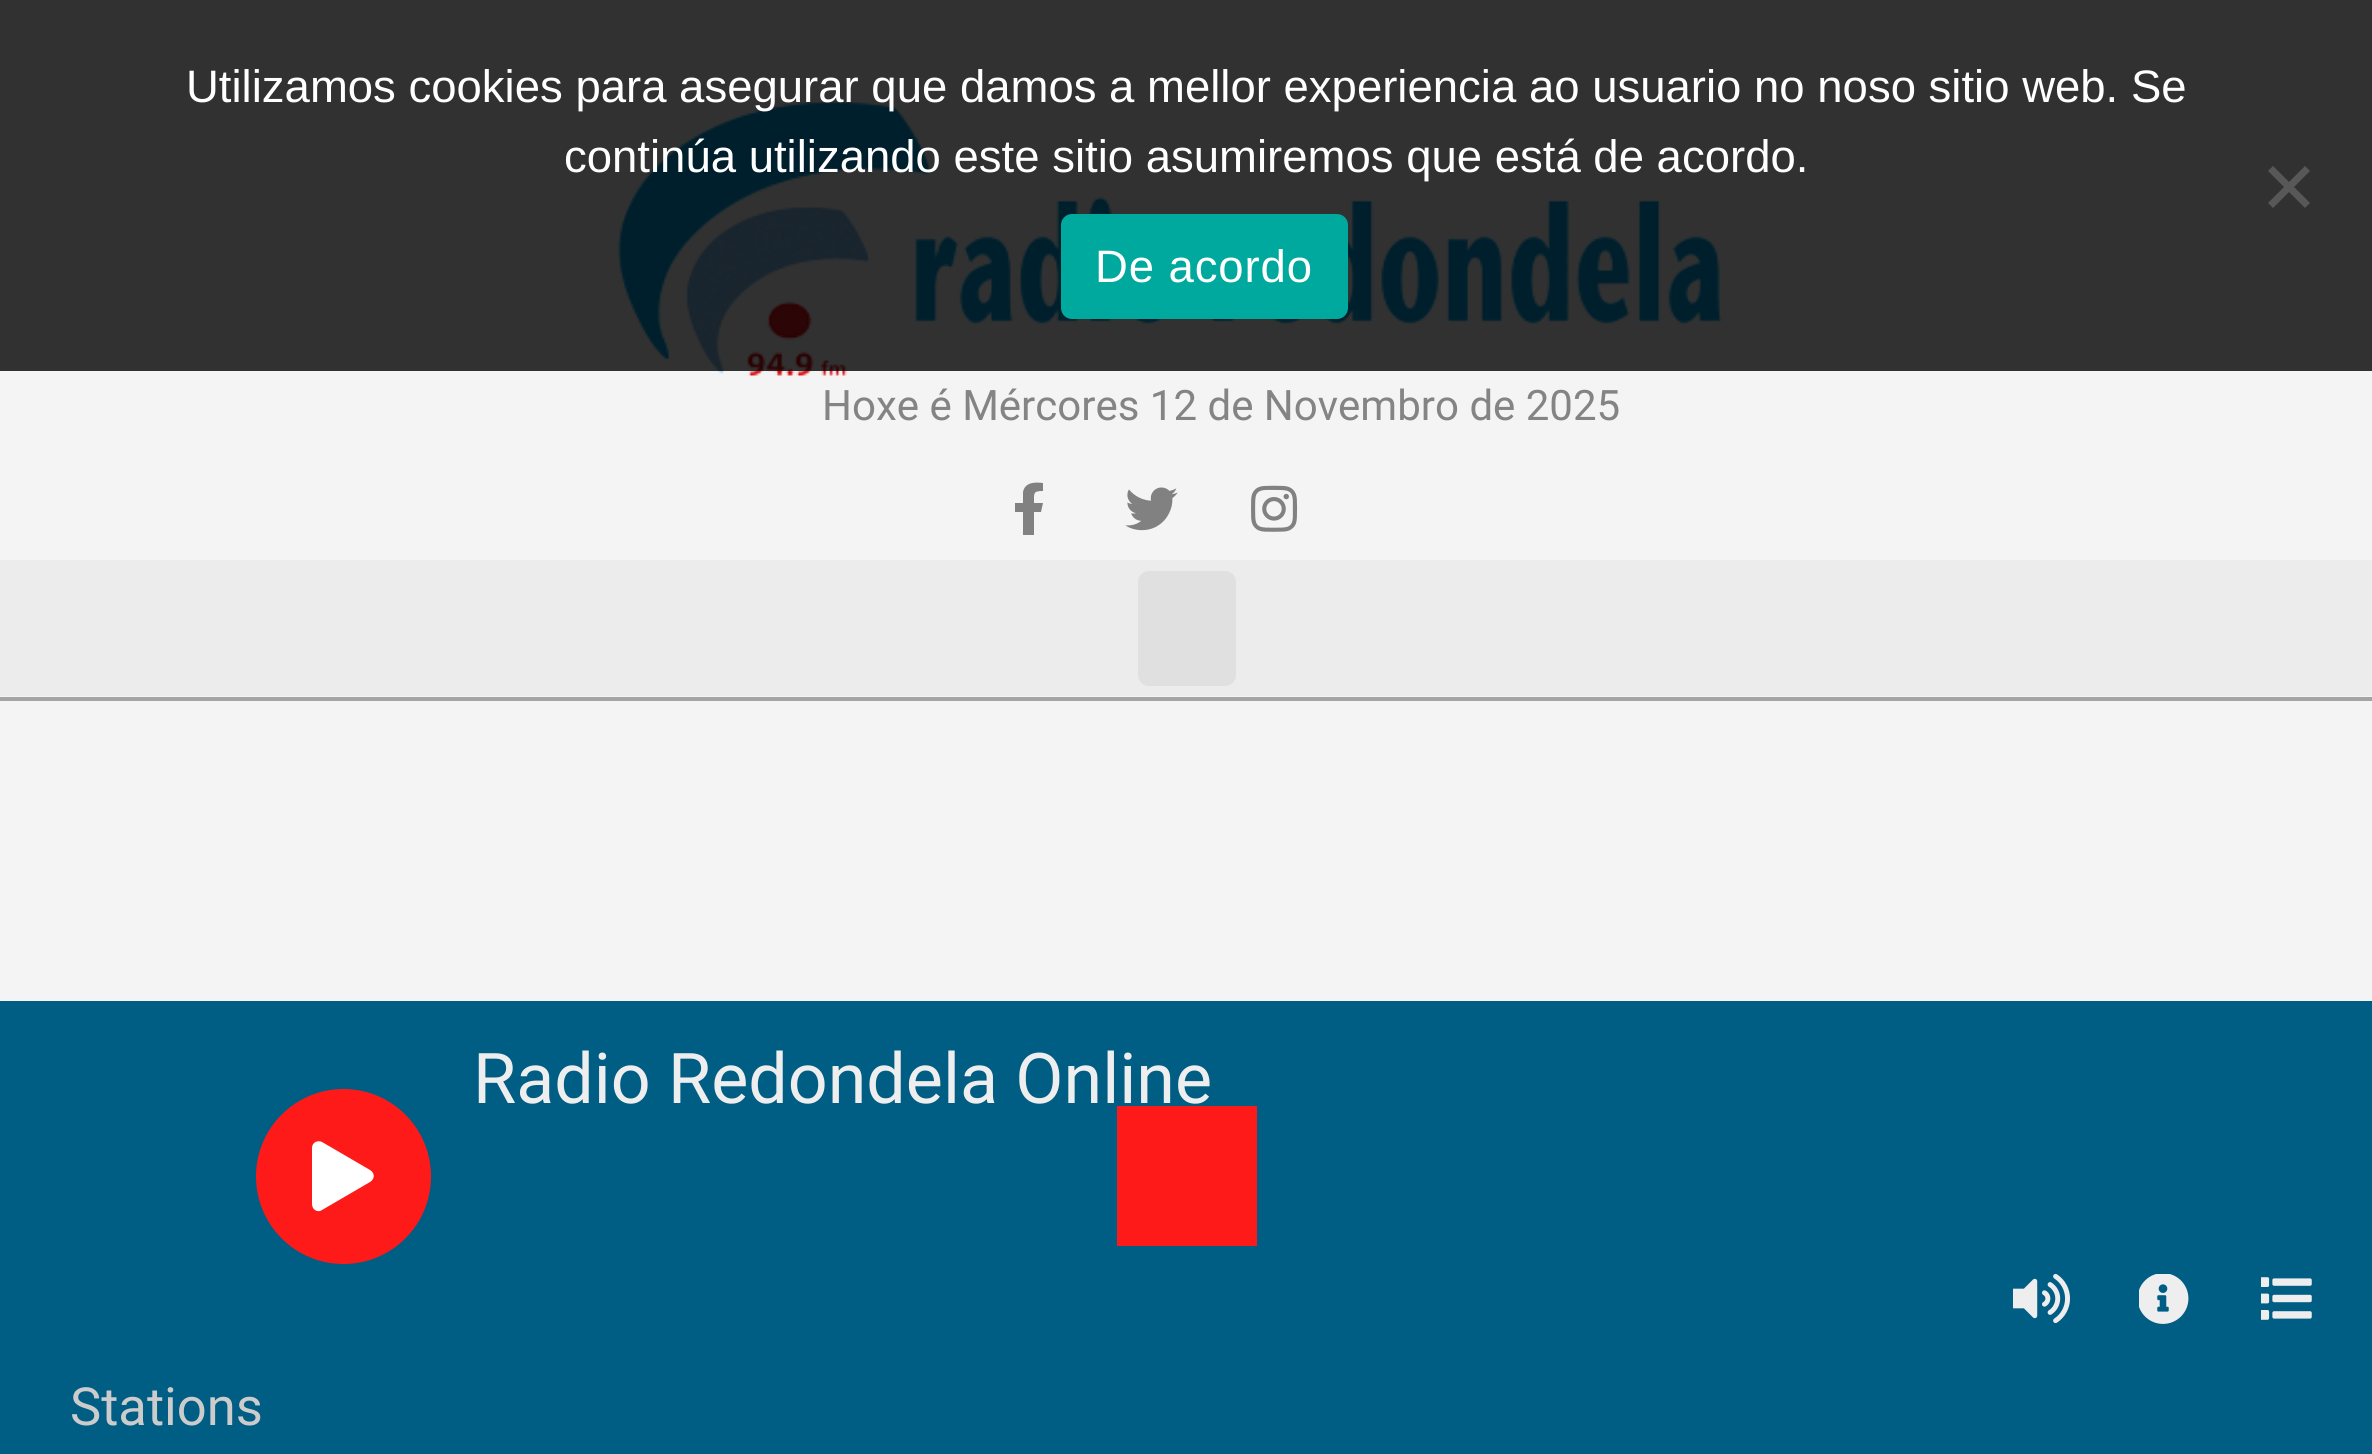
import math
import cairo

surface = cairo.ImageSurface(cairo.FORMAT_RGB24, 2372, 1454)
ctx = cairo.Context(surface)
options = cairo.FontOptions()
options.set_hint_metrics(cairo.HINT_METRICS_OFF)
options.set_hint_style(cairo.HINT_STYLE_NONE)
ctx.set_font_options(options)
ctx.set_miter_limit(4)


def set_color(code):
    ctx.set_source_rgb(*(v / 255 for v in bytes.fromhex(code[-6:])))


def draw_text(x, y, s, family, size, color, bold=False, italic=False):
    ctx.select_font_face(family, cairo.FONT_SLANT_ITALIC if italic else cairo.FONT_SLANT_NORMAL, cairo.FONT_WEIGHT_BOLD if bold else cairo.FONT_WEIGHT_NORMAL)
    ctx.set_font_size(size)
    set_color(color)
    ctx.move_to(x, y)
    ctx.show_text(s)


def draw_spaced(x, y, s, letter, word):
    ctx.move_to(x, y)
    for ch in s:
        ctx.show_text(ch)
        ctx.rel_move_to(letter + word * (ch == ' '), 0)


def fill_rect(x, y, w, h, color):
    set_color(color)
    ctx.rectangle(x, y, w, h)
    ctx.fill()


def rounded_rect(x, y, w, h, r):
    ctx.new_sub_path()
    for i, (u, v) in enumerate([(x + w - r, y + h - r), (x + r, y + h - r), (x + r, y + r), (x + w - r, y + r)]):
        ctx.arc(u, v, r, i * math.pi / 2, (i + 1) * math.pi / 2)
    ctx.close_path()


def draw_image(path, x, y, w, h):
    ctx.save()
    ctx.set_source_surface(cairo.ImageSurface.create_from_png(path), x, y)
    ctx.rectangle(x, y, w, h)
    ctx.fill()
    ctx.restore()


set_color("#f4f4f4")
ctx.paint()
fill_rect(0, 0, 2372, 371, "#313131")
draw_image("assets/img1.png", 617, 100, 1105, 277)
draw_text(186, 102, "Utilizamos cookies para asegurar que damos a mellor experiencia ao usuario no noso sitio web. Se", "Liberation Sans", 45.5, "#ffffff")
draw_text(564, 172, "continúa utilizando este sitio asumiremos que está de acordo.", "Liberation Sans", 45.5, "#ffffff")
set_color("#585858")
ctx.new_path()
ctx.move_to(2305, 166)
ctx.line_to(2310, 171)
ctx.line_to(2273, 208)
ctx.line_to(2268, 203)
ctx.close_path()
ctx.fill()
ctx.new_path()
ctx.move_to(2268, 171)
ctx.line_to(2273, 166)
ctx.line_to(2310, 203)
ctx.line_to(2305, 208)
ctx.close_path()
ctx.fill()
set_color("#00a99d")
rounded_rect(1061, 214, 287, 105, 11)
ctx.fill()
set_color("#ffffff")
draw_spaced(1095, 282, "De acordo", 0.9, 0)
draw_text(822, 420, "Hoxe é Mércores 12 de Novembro de 2025", "Roboto", 42, "#848484")
set_color("#818181")
ctx.new_path()
ctx.move_to(1041, 512)
ctx.line_to(1034, 512)
ctx.line_to(1034, 535)
ctx.line_to(1023, 535)
ctx.line_to(1023, 512)
ctx.line_to(1015, 512)
ctx.line_to(1015, 503)
ctx.line_to(1023, 503)
ctx.line_to(1023, 492)
ctx.curve_to(1025, 482, 1035, 482, 1043, 483)
ctx.line_to(1043, 491)
ctx.curve_to(1033, 491, 1034, 493, 1034, 503)
ctx.line_to(1043, 503)
ctx.close_path()
ctx.fill()
draw_image("assets/img2.png", 1125, 487, 53, 44)
draw_image("assets/img3.png", 1251, 485, 47, 47)
fill_rect(0, 560, 2372, 136, "#ececec")
fill_rect(0, 697, 2372, 4, "#a4a4a4")
set_color("#e0e0e0")
rounded_rect(1138, 571, 98, 115, 11)
ctx.fill()
fill_rect(0, 1001, 2372, 453, "#005d84")
draw_text(473, 1103, "Radio Redondela Online", "Roboto", 70, "#eeeeee")
set_color("#ff1a1a")
ctx.new_path()
ctx.arc(343.5, 1176.5, 87.5, 0, 2 * math.pi)
ctx.fill()
set_color("#ffffff")
ctx.new_path()
ctx.move_to(370, 1170)
ctx.line_to(322, 1142)
ctx.curve_to(318, 1140, 312, 1142, 312, 1148)
ctx.line_to(312, 1204)
ctx.curve_to(312, 1210, 318, 1213, 322, 1210)
ctx.line_to(370, 1182)
ctx.curve_to(375, 1179, 375, 1173, 370, 1170)
ctx.close_path()
ctx.fill()
fill_rect(1117, 1106, 140, 140, "#ff1a1a")
draw_image("assets/img4.png", 2013, 1274, 57, 50)
draw_image("assets/img5.png", 2139, 1274, 50, 50)
draw_image("assets/img6.png", 2261, 1277, 51, 43)
draw_text(70, 1425, "Stations", "Roboto", 52.5, "#cccccc")
surface.write_to_png("output.png")
